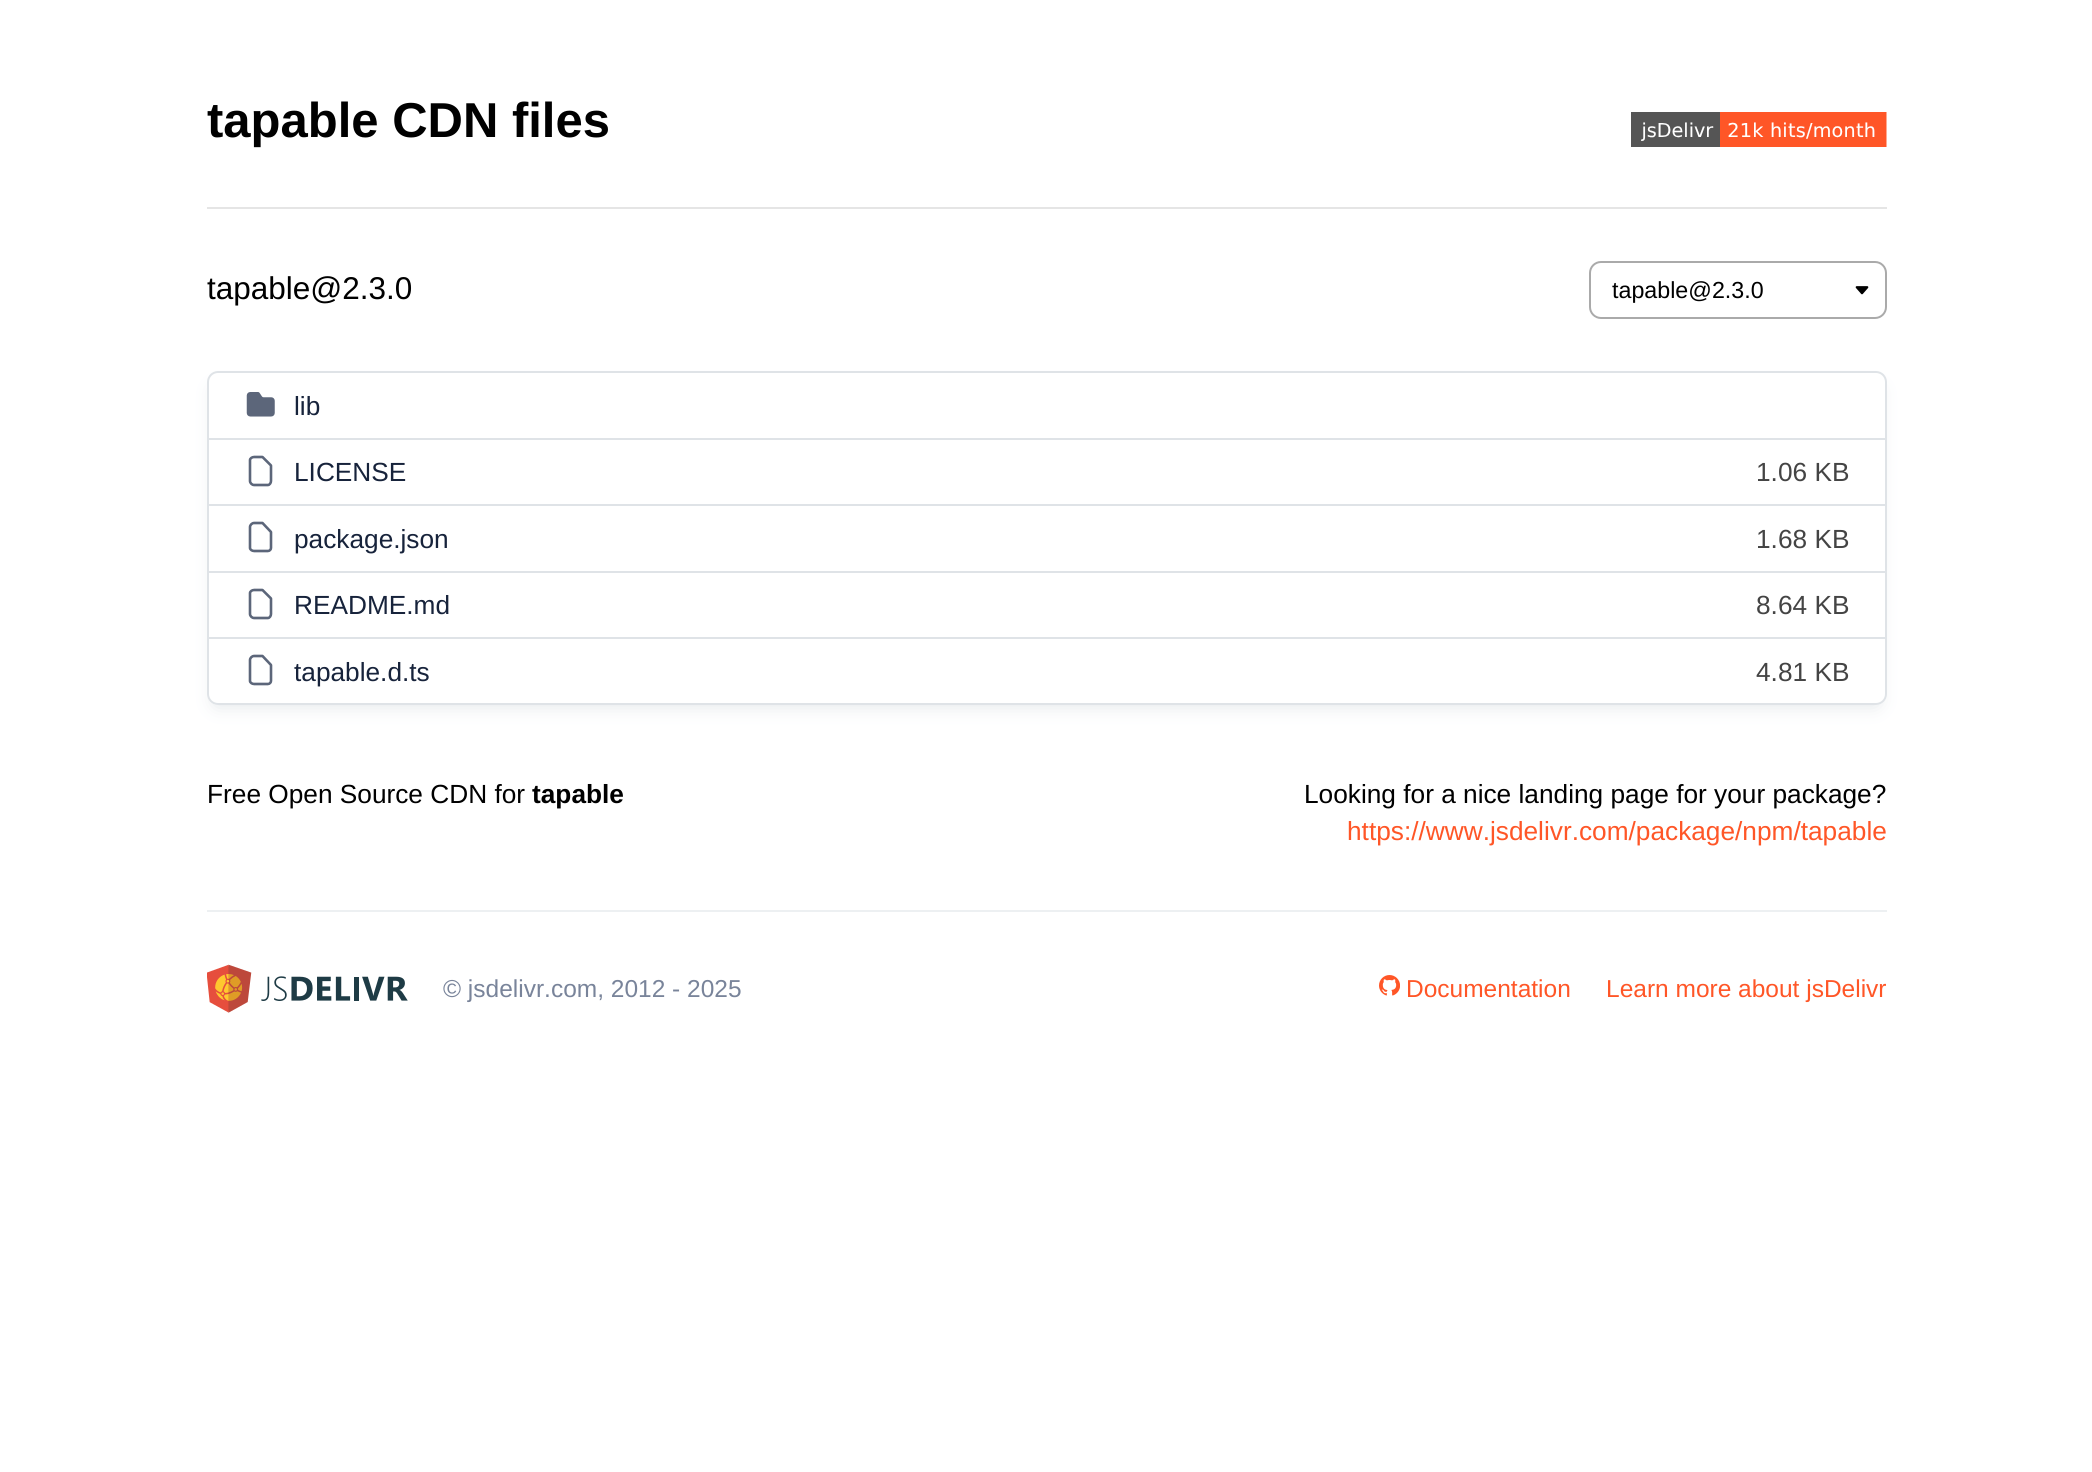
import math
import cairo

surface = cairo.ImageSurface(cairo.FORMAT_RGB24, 2092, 1472)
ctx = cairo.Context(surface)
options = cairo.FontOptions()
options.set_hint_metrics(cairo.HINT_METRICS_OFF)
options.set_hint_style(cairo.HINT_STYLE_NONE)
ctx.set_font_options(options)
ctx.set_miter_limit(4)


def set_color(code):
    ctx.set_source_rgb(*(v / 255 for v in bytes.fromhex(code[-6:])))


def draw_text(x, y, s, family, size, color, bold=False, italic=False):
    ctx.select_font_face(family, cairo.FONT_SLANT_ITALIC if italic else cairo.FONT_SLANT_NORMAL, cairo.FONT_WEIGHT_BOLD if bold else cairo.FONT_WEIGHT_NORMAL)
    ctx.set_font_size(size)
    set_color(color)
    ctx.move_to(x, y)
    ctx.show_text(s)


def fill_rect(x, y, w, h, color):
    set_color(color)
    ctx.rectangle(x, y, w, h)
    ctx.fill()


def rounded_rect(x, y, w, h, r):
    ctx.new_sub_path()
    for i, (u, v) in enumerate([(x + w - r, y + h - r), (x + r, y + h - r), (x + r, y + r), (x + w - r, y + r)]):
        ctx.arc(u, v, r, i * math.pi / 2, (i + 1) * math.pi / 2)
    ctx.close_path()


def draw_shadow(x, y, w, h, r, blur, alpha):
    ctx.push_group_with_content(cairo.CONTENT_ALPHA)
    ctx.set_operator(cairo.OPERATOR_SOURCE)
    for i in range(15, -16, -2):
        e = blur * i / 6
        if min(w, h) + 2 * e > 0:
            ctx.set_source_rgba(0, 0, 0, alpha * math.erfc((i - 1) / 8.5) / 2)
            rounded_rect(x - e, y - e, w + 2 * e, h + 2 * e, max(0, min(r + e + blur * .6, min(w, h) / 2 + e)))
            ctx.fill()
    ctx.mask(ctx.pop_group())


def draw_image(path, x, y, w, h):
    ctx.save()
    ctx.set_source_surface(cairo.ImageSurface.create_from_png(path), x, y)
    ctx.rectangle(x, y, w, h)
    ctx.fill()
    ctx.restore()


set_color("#ffffff")
ctx.paint()
draw_text(207, 137, "tapable CDN files", "Liberation Sans", 49, "#000000", bold=True)
draw_image("assets/img1.png", 1631, 112, 256, 35)
fill_rect(207, 207, 1680, 2, "#e5e5e5")
draw_text(207, 299, "tapable@2.3.0", "Liberation Sans", 31.5, "#000000")
draw_image("assets/img2.png", 1855, 286, 14, 9)
rounded_rect(1590, 262, 296, 56, 11)
set_color("#aaaaaa")
ctx.stroke()
draw_text(1612, 298, "tapable@2.3.0", "Liberation Sans", 23.25, "#000000")
ctx.save()
ctx.set_fill_rule(cairo.FILL_RULE_EVEN_ODD)
ctx.new_path()
ctx.move_to(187, 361)
ctx.line_to(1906, 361)
ctx.line_to(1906, 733)
ctx.line_to(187, 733)
ctx.close_path()
ctx.move_to(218, 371)
ctx.line_to(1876, 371)
ctx.curve_to(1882, 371, 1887, 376, 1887, 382)
ctx.line_to(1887, 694)
ctx.curve_to(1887, 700, 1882, 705, 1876, 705)
ctx.line_to(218, 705)
ctx.curve_to(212, 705, 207, 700, 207, 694)
ctx.line_to(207, 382)
ctx.curve_to(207, 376, 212, 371, 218, 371)
ctx.close_path()
ctx.clip()
set_color("#dfe3e7")
draw_shadow(215, 389, 1663, 316, 2, 9, 1)
ctx.restore()
rounded_rect(208, 372, 1678, 332, 10)
set_color("#dfe3e7")
ctx.stroke()
fill_rect(208, 438, 1677, 2, "#dfe3e7")
draw_image("assets/img3.png", 246, 392, 29, 25)
draw_text(294, 415, "lib", "Liberation Sans", 26.25, "#17233b")
fill_rect(208, 504, 1677, 2, "#dfe3e7")
ctx.new_path()
ctx.move_to(250, 460)
ctx.curve_to(250, 458.5, 252, 457, 254, 457)
ctx.line_to(262.5, 457)
ctx.line_to(271, 465.5)
ctx.line_to(271, 481)
ctx.curve_to(271, 483, 269.5, 485, 268, 485)
ctx.line_to(254, 485)
ctx.curve_to(252, 485, 250, 483, 250, 481)
ctx.close_path()
set_color("#5c667a")
ctx.set_line_width(2.6)
ctx.set_line_cap(cairo.LINE_CAP_ROUND)
ctx.set_line_join(cairo.LINE_JOIN_ROUND)
ctx.stroke()
draw_text(294, 481, "LICENSE", "Liberation Sans", 26.25, "#17233b")
draw_text(1756, 481, "1.06 KB", "Liberation Sans", 26.25, "#444444")
fill_rect(208, 571, 1677, 2, "#dfe3e7")
ctx.new_path()
ctx.move_to(250, 527)
ctx.curve_to(250, 525, 252, 523, 254, 523)
ctx.line_to(262.5, 523)
ctx.line_to(271, 532)
ctx.line_to(271, 548)
ctx.curve_to(271, 549.5, 269.5, 551, 268, 551)
ctx.line_to(254, 551)
ctx.curve_to(252, 551, 250, 549.5, 250, 548)
ctx.close_path()
set_color("#5c667a")
ctx.stroke()
draw_text(294, 548, "package.json", "Liberation Sans", 26.25, "#17233b")
draw_text(1756, 548, "1.68 KB", "Liberation Sans", 26.25, "#444444")
fill_rect(208, 637, 1677, 2, "#dfe3e7")
ctx.new_path()
ctx.move_to(250, 593)
ctx.curve_to(250, 591.5, 252, 590, 254, 590)
ctx.line_to(262.5, 590)
ctx.line_to(271, 598.5)
ctx.line_to(271, 614)
ctx.curve_to(271, 616, 269.5, 618, 268, 618)
ctx.line_to(254, 618)
ctx.curve_to(252, 618, 250, 616, 250, 614)
ctx.close_path()
set_color("#5c667a")
ctx.stroke()
draw_text(294, 614, "README.md", "Liberation Sans", 26.25, "#17233b")
draw_text(1756, 614, "8.64 KB", "Liberation Sans", 26.25, "#444444")
ctx.new_path()
ctx.move_to(250, 660)
ctx.curve_to(250, 658, 252, 656, 254, 656)
ctx.line_to(262.5, 656)
ctx.line_to(271, 665)
ctx.line_to(271, 681)
ctx.curve_to(271, 682.5, 269.5, 684, 268, 684)
ctx.line_to(254, 684)
ctx.curve_to(252, 684, 250, 682.5, 250, 681)
ctx.close_path()
set_color("#5c667a")
ctx.stroke()
draw_text(294, 681, "tapable.d.ts", "Liberation Sans", 26.25, "#17233b")
draw_text(1756, 681, "4.81 KB", "Liberation Sans", 26.25, "#444444")
draw_text(207, 803, "Free Open Source CDN for", "Liberation Sans", 26.25, "#000000")
draw_text(532, 803, "tapable", "Liberation Sans", 26.25, "#000000", bold=True)
draw_text(1304, 803, "Looking for a nice landing page for your package?", "Liberation Sans", 26.25, "#000000")
draw_text(1347, 840, "https://www.jsdelivr.com/package/npm/tapable", "Liberation Sans", 26.25, "#ff5627")
fill_rect(207, 910, 1680, 2, "#edf0f2")
draw_image("assets/img4.png", 207, 964, 201, 49)
draw_text(443, 997, "© jsdelivr.com, 2012 - 2025", "Liberation Sans", 24.5, "#79849a")
draw_image("assets/img5.png", 1379, 975, 21, 21)
draw_text(1406, 997, "Documentation", "Liberation Sans", 24.5, "#ff5627")
draw_text(1606, 997, "Learn more about jsDelivr", "Liberation Sans", 24.5, "#ff5627")
surface.write_to_png("output.png")
